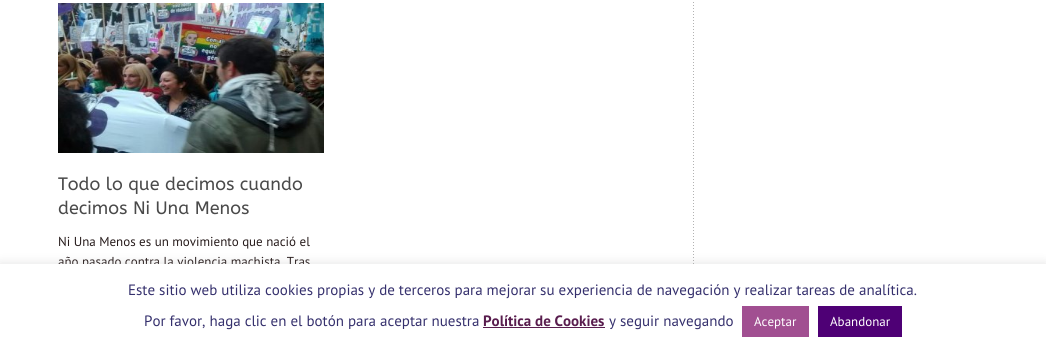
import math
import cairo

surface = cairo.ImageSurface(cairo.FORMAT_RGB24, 1046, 349)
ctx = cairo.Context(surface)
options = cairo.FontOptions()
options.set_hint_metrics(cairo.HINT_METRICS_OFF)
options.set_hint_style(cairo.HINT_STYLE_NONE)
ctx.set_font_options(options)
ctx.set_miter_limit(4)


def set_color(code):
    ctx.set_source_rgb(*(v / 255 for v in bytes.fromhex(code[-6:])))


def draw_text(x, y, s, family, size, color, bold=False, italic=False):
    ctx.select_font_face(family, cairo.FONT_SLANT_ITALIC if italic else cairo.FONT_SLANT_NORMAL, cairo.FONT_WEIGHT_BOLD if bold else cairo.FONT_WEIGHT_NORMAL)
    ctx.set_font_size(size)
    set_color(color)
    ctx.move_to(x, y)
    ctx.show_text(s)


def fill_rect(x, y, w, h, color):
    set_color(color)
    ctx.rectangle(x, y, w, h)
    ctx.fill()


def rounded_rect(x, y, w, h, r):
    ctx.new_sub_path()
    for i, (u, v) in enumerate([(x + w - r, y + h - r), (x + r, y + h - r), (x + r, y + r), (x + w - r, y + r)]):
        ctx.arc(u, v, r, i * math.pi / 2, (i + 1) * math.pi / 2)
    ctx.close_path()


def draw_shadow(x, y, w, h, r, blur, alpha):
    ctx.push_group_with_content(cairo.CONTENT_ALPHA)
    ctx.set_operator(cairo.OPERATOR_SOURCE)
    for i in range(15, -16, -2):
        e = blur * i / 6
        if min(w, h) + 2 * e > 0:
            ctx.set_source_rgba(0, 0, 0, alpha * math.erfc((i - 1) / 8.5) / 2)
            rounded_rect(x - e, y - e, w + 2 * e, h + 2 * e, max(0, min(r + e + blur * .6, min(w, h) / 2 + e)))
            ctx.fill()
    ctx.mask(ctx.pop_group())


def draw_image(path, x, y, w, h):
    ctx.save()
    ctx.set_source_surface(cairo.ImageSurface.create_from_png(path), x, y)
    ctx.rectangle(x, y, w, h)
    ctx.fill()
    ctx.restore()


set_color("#ffffff")
ctx.paint()
draw_image("assets/img1.png", 58, 3, 266, 150)
draw_text(58, 190, "Todo lo que decimos cuando", "ABeeZee", 18, "#4a4a4a")
draw_text(58, 214, "decimos Ni Una Menos", "ABeeZee", 18, "#4a4a4a")
draw_text(58, 246, "Ni Una Menos es un movimiento que nació el", "PT Sans", 13, "#261b1b")
draw_text(58, 266, "año pasado contra la violencia machista. Tras", "PT Sans", 13, "#261b1b")
draw_image("assets/img2.png", 693, 2, 1, 262)
set_color("#acabab")
draw_shadow(0, 263, 1046, 85, 0, 5, 0.3)
fill_rect(0, 264, 1046, 85, "#ffffff")
draw_text(128, 295, "Este sitio web utiliza cookies propias y de terceros para mejorar su experiencia de navegación y realizar tareas de analítica.", "PT Sans", 15, "#35306d")
draw_text(144, 326, "Por favor, haga clic en el botón para aceptar nuestra", "PT Sans", 15, "#35306d")
draw_text(483, 326, "Política de Cookies", "PT Sans", 15, "#591d4e", bold=True)
fill_rect(483, 327, 122, 1, "#591d4e")
draw_text(609, 326, "y seguir navegando", "PT Sans", 15, "#35306d")
fill_rect(742, 306, 67, 31, "#a14f91")
draw_text(754, 326, "Aceptar", "PT Sans", 13, "#ffffff")
fill_rect(818, 306, 84, 31, "#4e0075")
draw_text(830, 326, "Abandonar", "PT Sans", 13, "#ffffff")
surface.write_to_png("output.png")
